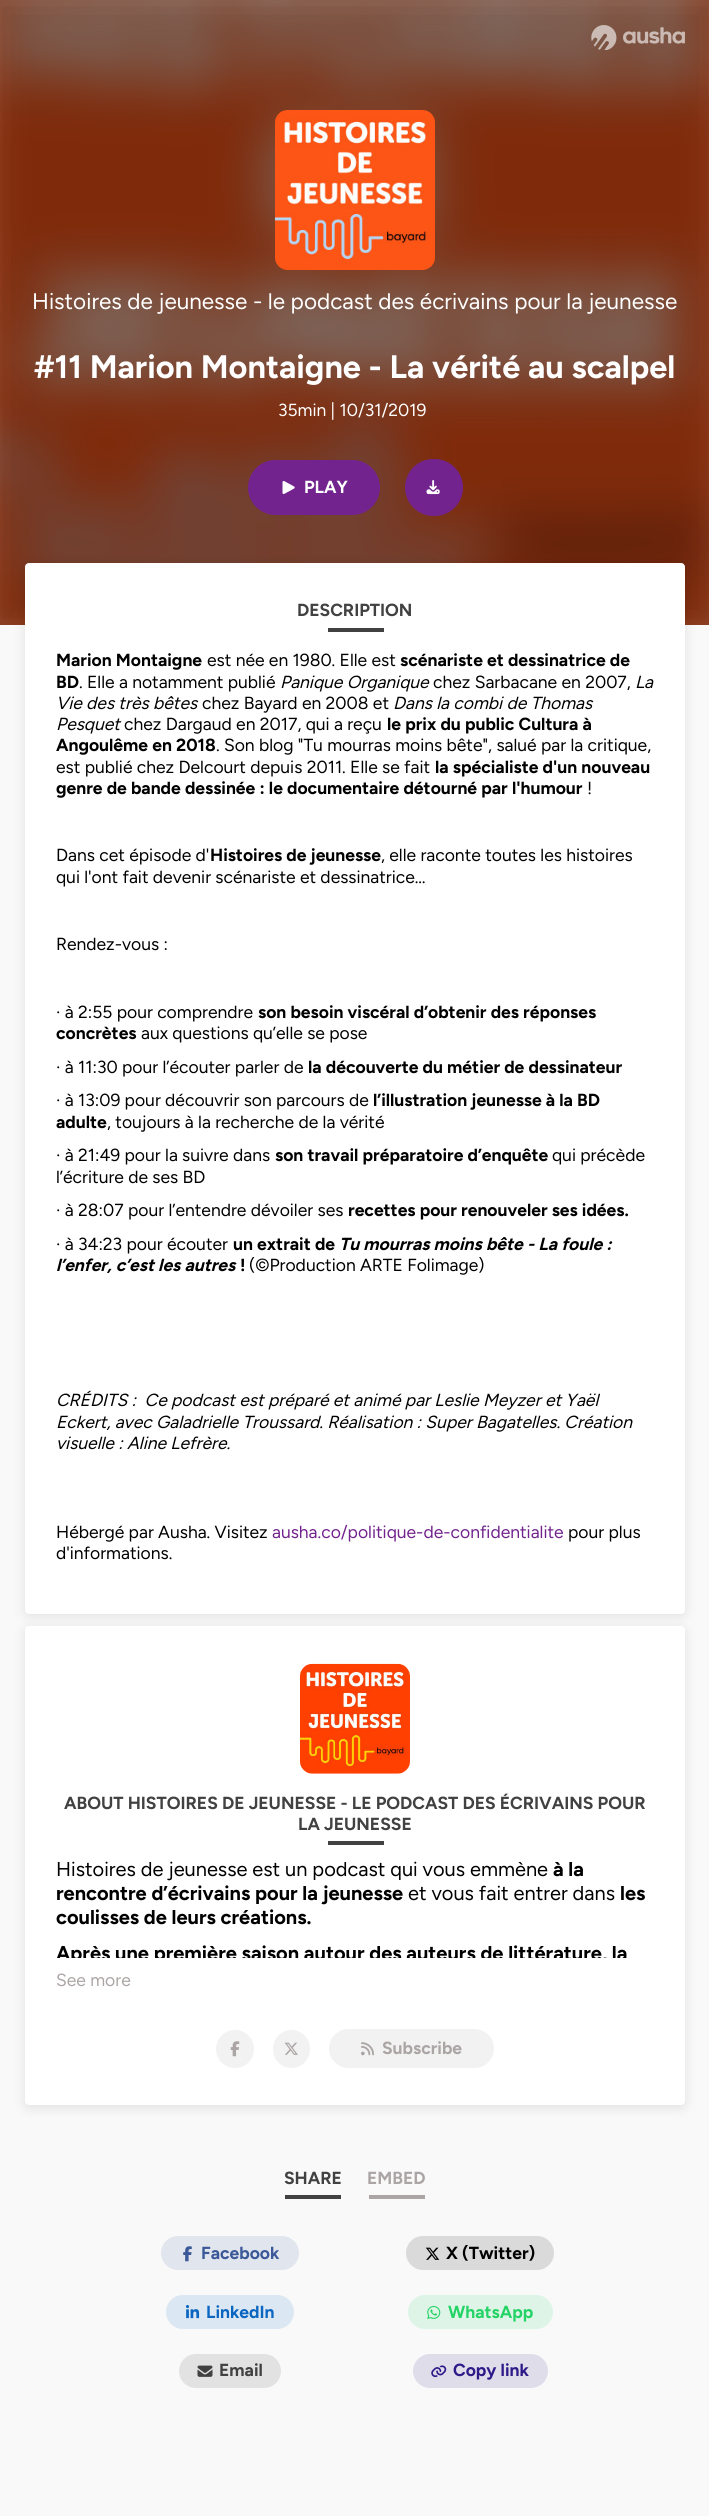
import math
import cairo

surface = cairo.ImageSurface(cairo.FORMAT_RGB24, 709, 2516)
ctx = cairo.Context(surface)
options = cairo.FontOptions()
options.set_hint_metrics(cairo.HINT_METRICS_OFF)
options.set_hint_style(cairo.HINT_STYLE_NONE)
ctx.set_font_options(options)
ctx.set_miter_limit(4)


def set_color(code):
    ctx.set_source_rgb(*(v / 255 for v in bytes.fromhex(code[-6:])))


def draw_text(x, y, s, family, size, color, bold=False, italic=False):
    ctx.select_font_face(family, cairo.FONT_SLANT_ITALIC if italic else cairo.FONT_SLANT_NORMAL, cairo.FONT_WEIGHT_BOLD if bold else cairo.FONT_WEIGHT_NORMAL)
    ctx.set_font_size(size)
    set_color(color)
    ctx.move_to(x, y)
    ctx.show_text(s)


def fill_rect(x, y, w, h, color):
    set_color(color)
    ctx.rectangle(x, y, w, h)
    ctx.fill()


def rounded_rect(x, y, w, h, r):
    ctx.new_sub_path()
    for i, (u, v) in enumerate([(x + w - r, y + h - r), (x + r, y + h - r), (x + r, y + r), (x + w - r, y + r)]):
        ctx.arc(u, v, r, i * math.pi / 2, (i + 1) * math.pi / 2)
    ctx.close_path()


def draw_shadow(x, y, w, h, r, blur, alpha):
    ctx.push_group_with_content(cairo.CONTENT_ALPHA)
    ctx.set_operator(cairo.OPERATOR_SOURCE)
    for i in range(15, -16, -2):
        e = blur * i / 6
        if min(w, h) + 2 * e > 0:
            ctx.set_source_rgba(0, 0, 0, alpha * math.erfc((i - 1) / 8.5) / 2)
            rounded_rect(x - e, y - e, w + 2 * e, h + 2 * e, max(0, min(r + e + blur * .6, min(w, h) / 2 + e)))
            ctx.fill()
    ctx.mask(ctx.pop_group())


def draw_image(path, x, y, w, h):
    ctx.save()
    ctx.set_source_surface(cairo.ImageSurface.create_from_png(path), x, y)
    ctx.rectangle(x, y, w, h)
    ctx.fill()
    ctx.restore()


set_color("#ffffff")
ctx.paint()
draw_image("assets/img1.png", 0, 0, 709, 625)
set_color("#000000")
draw_shadow(-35, -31, 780, 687, 0, 25, 0.5)
draw_image("assets/img2.png", 591, 25, 94, 25)
draw_image("assets/img3.png", 275, 110, 160, 160)
draw_text(32, 309, "Histoires de jeunesse - le podcast des écrivains pour la jeunesse", "Figtree", 22.5, "#ffffff")
draw_text(34, 378, "#11 Marion Montaigne - La vérité au scalpel", "Figtree", 32.5, "#ffffff", bold=True)
draw_text(278, 416, "35min | 10/31/2019", "Figtree", 17.5, "#ffffff")
set_color("#72238e")
rounded_rect(248, 460, 132, 55, 27.5)
ctx.fill()
draw_image("assets/img4.png", 282, 481, 13, 13)
draw_text(304, 493, "PLAY", "Figtree", 17.5, "#ffffff", bold=True)
set_color("#72238e")
rounded_rect(405, 459, 58, 57, 28.5)
ctx.fill()
draw_image("assets/img5.png", 426, 480, 14, 15)
fill_rect(0, 625, 709, 1891, "#f9f9f9")
set_color("#000000")
draw_shadow(25, 565, 660, 1051, 4, 6, 0.1)
set_color("#ffffff")
rounded_rect(25, 563, 660, 1051, 4)
ctx.fill()
draw_text(297, 616, "DESCRIPTION", "Figtree", 17.5, "#414141", bold=True)
fill_rect(328, 628, 56, 4, "#414141")
draw_text(56, 666, "Marion Montaigne", "Figtree", 17.5, "#000000", bold=True)
draw_text(207, 666, "est née en 1980. Elle est", "Figtree", 17.5, "#000000")
draw_text(400, 666, "scénariste et dessinatrice de", "Figtree", 17.5, "#000000", bold=True)
draw_text(56, 688, "BD", "Figtree", 17.5, "#000000", bold=True)
draw_text(79, 688, ". Elle a notamment publié", "Figtree", 17.5, "#000000")
draw_text(280, 688, "Panique Organique", "Figtree", 17.5, "#000000", italic=True)
draw_text(433, 688, "chez Sarbacane en 2007,", "Figtree", 17.5, "#000000")
draw_text(635, 688, "La", "Figtree", 17.5, "#000000", italic=True)
draw_text(56, 709, "Vie des très bêtes", "Figtree", 17.5, "#000000", italic=True)
draw_text(202, 709, "chez Bayard en 2008 et", "Figtree", 17.5, "#000000")
draw_text(393, 709, "Dans la combi de Thomas", "Figtree", 17.5, "#000000", italic=True)
draw_text(56, 730, "Pesquet", "Figtree", 17.5, "#000000", italic=True)
draw_text(124, 730, "chez Dargaud en 2017, qui a reçu", "Figtree", 17.5, "#000000")
draw_text(387, 730, "le prix du public Cultura à", "Figtree", 17.5, "#000000", bold=True)
draw_text(56, 751, "Angoulême en 2018", "Figtree", 17.5, "#000000", bold=True)
draw_text(216, 751, ". Son blog \"Tu mourras moins bête\", salué par la critique,", "Figtree", 17.5, "#000000")
draw_text(56, 773, "est publié chez Delcourt depuis 2011. Elle se fait", "Figtree", 17.5, "#000000")
draw_text(435, 773, "la spécialiste d'un nouveau", "Figtree", 17.5, "#000000", bold=True)
draw_text(56, 794, "genre de bande dessinée : le documentaire détourné par l'humour", "Figtree", 17.5, "#000000", bold=True)
draw_text(587, 794, "!", "Figtree", 17.5, "#000000")
draw_text(56, 861, "Dans cet épisode d'", "Figtree", 17.5, "#000000")
draw_text(210, 861, "Histoires de jeunesse", "Figtree", 17.5, "#000000", bold=True)
draw_text(381, 861, ", elle raconte toutes les histoires", "Figtree", 17.5, "#000000")
draw_text(56, 883, "qui l'ont fait devenir scénariste et dessinatrice…", "Figtree", 17.5, "#000000")
draw_text(56, 950, "Rendez-vous :", "Figtree", 17.5, "#000000")
draw_text(56, 1018, "· à 2:55 pour comprendre", "Figtree", 17.5, "#000000")
draw_text(258, 1018, "son besoin viscéral d’obtenir des réponses", "Figtree", 17.5, "#000000", bold=True)
draw_text(56, 1039, "concrètes", "Figtree", 17.5, "#000000", bold=True)
draw_text(141, 1039, "aux questions qu’elle se pose", "Figtree", 17.5, "#000000")
draw_text(56, 1073, "· à 11:30 pour l’écouter parler de", "Figtree", 17.5, "#000000")
draw_text(308, 1073, "la découverte du métier de dessinateur", "Figtree", 17.5, "#000000", bold=True)
draw_text(56, 1106, "· à 13:09 pour découvrir son parcours de", "Figtree", 17.5, "#000000")
draw_text(373, 1106, "l’illustration jeunesse à la BD", "Figtree", 17.5, "#000000", bold=True)
draw_text(56, 1128, "adulte", "Figtree", 17.5, "#000000", bold=True)
draw_text(107, 1128, ", toujours à la recherche de la vérité", "Figtree", 17.5, "#000000")
draw_text(56, 1161, "· à 21:49 pour la suivre dans", "Figtree", 17.5, "#000000")
draw_text(275, 1161, "son travail préparatoire d’enquête", "Figtree", 17.5, "#000000", bold=True)
draw_text(552, 1161, "qui précède", "Figtree", 17.5, "#000000")
draw_text(56, 1183, "l’écriture de ses BD", "Figtree", 17.5, "#000000")
draw_text(56, 1216, "· à 28:07 pour l’entendre dévoiler ses", "Figtree", 17.5, "#000000")
draw_text(348, 1216, "recettes pour renouveler ses idées.", "Figtree", 17.5, "#000000", bold=True)
draw_text(56, 1250, "· à 34:23 pour écouter", "Figtree", 17.5, "#000000")
draw_text(233, 1250, "un extrait de", "Figtree", 17.5, "#000000", bold=True)
draw_text(339, 1250, "Tu mourras moins bête - La foule :", "Figtree", 17.5, "#000000", bold=True, italic=True)
draw_text(56, 1271, "l’enfer, c’est les autres", "Figtree", 17.5, "#000000", bold=True, italic=True)
draw_text(240, 1271, "!", "Figtree", 17.5, "#000000", bold=True)
draw_text(249, 1271, "(©Production ARTE Folimage)", "Figtree", 17.5, "#000000")
draw_text(56, 1406, "CRÉDITS :  Ce podcast est préparé et animé par Leslie Meyzer et Yaël", "Figtree", 17.5, "#000000", italic=True)
draw_text(56, 1428, "Eckert, avec Galadrielle Troussard. Réalisation : Super Bagatelles. Création", "Figtree", 17.5, "#000000", italic=True)
draw_text(56, 1449, "visuelle : Aline Lefrère.", "Figtree", 17.5, "#000000", italic=True)
draw_text(56, 1538, "Hébergé par Ausha. Visitez", "Figtree", 17.5, "#000000")
draw_text(272, 1538, "ausha.co/politique-de-confidentialite", "Figtree", 17.5, "#72238e")
draw_text(568, 1538, "pour plus", "Figtree", 17.5, "#000000")
draw_text(56, 1559, "d'informations.", "Figtree", 17.5, "#000000")
set_color("#000000")
draw_shadow(25, 1629, 660, 479, 4, 6, 0.1)
set_color("#ffffff")
rounded_rect(25, 1626, 660, 479, 4)
ctx.fill()
draw_image("assets/img6.png", 300, 1663, 110, 111)
draw_text(64, 1809, "ABOUT HISTOIRES DE JEUNESSE - LE PODCAST DES ÉCRIVAINS POUR", "Figtree", 17.5, "#414141", bold=True)
draw_text(298, 1830, "LA JEUNESSE", "Figtree", 17.5, "#414141", bold=True)
fill_rect(328, 1841, 56, 4, "#414141")
draw_text(56, 1876, "Histoires de jeunesse est un podcast qui vous emmène", "Figtree", 20, "#000000")
draw_text(553, 1876, "à la", "Figtree", 20, "#000000", bold=True)
draw_text(56, 1900, "rencontre d’écrivains pour la jeunesse", "Figtree", 20, "#000000", bold=True)
draw_text(408, 1900, "et vous fait entrer dans", "Figtree", 20, "#000000")
draw_text(620, 1900, "les", "Figtree", 20, "#000000", bold=True)
draw_text(56, 1924, "coulisses de leurs créations.", "Figtree", 20, "#000000", bold=True)
ctx.save()
ctx.rectangle(56, 1858, 598, 100)
ctx.clip()
draw_text(56, 1960, "Après une première saison autour des auteurs de littérature, la", "Figtree", 20, "#000000", bold=True)
ctx.restore()
draw_text(56, 1986, "See more", "Figtree", 17.5, "#aca5a5")
set_color("#f2f2f2")
ctx.new_path()
ctx.arc(235, 2049, 19, 0, 2 * math.pi)
ctx.fill()
draw_image("assets/img7.png", 230, 2041, 10, 16)
rounded_rect(273, 2030, 37, 38, 18.5)
ctx.fill()
draw_image("assets/img8.png", 284, 2042, 14, 13)
rounded_rect(329, 2029, 165, 39, 19.5)
ctx.fill()
draw_image("assets/img9.png", 361, 2042, 13, 14)
draw_text(382, 2054, "Subscribe", "Figtree", 17.5, "#aca5a5", bold=True)
draw_text(284, 2184, "SHARE", "Figtree", 17.5, "#414141", bold=True)
fill_rect(285, 2195, 56, 4, "#414141")
draw_text(367, 2184, "EMBED", "Figtree", 17.5, "#aca5a5", bold=True)
fill_rect(369, 2195, 56, 4, "#aca5a5")
set_color("#e1e5ed")
rounded_rect(161, 2236, 138, 34, 17)
ctx.fill()
draw_image("assets/img10.png", 183, 2246, 9, 16)
draw_text(201, 2259, "Facebook", "Figtree", 17.5, "#3b5998", bold=True)
set_color("#dadada")
rounded_rect(406, 2236, 148, 34, 17)
ctx.fill()
draw_image("assets/img11.png", 425, 2247, 15, 13)
draw_text(446, 2259, "X (Twitter)", "Figtree", 17.5, "#000000", bold=True)
set_color("#dbe7f2")
rounded_rect(166, 2295, 128, 34, 17)
ctx.fill()
draw_image("assets/img12.png", 186, 2305, 14, 14)
draw_text(206, 2318, "LinkedIn", "Figtree", 17.5, "#0b66c2", bold=True)
set_color("#def4e7")
rounded_rect(408, 2295, 145, 34, 17)
ctx.fill()
draw_image("assets/img13.png", 427, 2305, 14, 14)
draw_text(448, 2318, "WhatsApp", "Figtree", 17.5, "#24d366", bold=True)
set_color("#e2e2e2")
rounded_rect(179, 2354, 102, 34, 17)
ctx.fill()
draw_image("assets/img14.png", 197, 2365, 16, 12)
draw_text(219, 2376, "Email", "Figtree", 17.5, "#414141", bold=True)
set_color("#e0ddeb")
rounded_rect(413, 2354, 135, 34, 17)
ctx.fill()
draw_image("assets/img15.png", 431, 2365, 16, 13)
draw_text(453, 2376, "Copy link", "Figtree", 17.5, "#2e1a88", bold=True)
surface.write_to_png("output.png")
